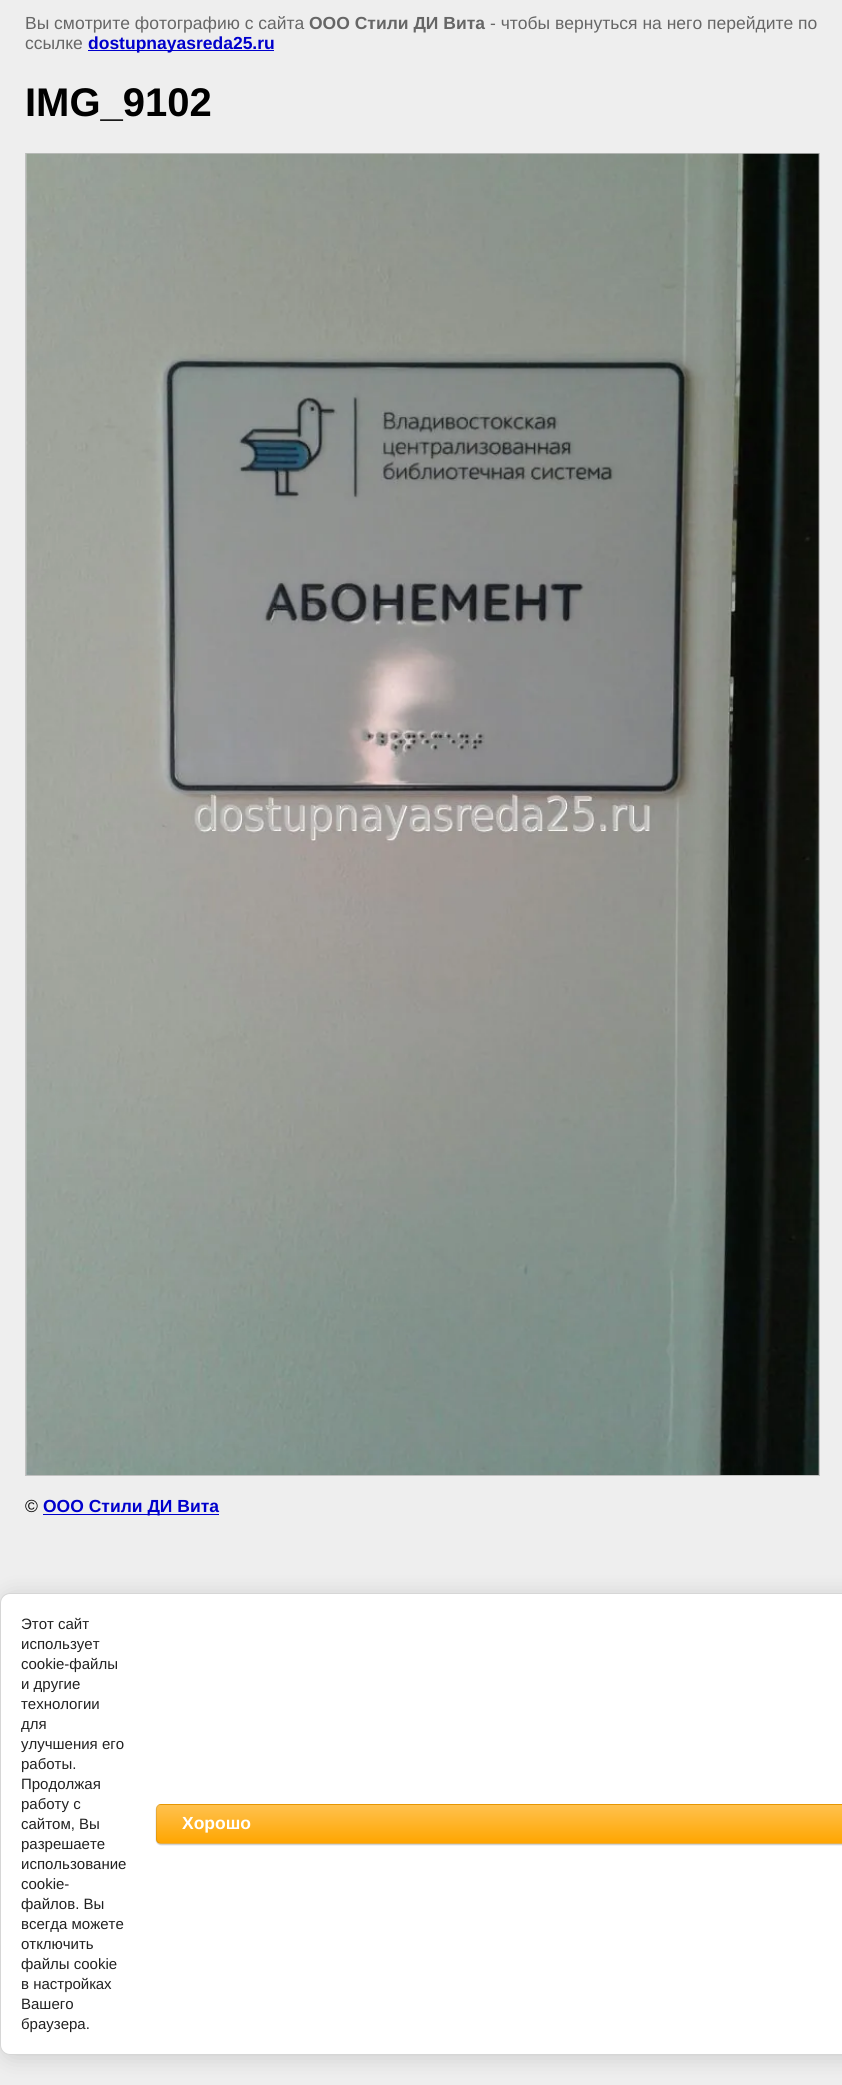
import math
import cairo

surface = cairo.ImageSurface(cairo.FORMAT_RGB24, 842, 2085)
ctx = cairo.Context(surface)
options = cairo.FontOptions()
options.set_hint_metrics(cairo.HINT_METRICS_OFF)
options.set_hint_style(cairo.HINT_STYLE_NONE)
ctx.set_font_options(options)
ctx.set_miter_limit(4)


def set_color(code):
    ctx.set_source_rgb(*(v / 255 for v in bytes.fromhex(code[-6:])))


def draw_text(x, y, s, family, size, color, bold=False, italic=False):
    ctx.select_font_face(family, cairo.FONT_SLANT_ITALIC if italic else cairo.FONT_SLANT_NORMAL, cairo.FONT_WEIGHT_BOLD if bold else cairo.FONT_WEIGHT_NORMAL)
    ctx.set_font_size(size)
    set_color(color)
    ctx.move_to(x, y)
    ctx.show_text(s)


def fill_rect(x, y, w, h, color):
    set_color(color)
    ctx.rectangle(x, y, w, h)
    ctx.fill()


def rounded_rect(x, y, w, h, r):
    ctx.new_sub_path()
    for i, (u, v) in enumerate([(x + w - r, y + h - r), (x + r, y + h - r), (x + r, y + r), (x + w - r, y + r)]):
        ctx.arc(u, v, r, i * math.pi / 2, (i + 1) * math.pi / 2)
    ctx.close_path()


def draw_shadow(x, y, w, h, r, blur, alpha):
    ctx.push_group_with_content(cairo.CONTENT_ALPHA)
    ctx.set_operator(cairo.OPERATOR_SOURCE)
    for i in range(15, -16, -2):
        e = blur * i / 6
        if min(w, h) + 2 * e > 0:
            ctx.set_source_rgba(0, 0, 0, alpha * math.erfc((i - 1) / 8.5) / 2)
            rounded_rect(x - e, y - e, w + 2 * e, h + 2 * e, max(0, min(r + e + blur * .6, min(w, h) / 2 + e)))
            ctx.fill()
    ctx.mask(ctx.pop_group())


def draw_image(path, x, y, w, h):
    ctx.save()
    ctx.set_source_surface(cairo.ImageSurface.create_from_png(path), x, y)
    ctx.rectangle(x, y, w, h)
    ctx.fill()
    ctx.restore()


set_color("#eeeeee")
ctx.paint()
draw_text(25, 29, "Вы смотрите фотографию с сайта", "Liberation Sans", 17.5, "#666666")
draw_text(309, 29, "ООО Стили ДИ Вита", "Liberation Sans", 17.5, "#666666", bold=True)
draw_text(490, 29, "- чтобы вернуться на него перейдите по", "Liberation Sans", 17.5, "#666666")
draw_text(25, 49, "ссылке", "Liberation Sans", 17.5, "#666666")
fill_rect(88, 50, 186, 1, "#0000cc")
draw_text(88, 49, "dostupnayasreda25.ru", "Liberation Sans", 17.5, "#0000cc", bold=True)
draw_text(25, 116, "IMG_9102", "Liberation Sans", 40, "#000000", bold=True)
ctx.rectangle(25.5, 153.5, 794, 1322)
set_color("#c0c0c0")
ctx.set_line_width(1)
ctx.stroke()
draw_image("assets/img1.png", 26, 153, 793, 1322)
draw_text(25, 1512, "©", "Liberation Sans", 17.5, "#000000")
fill_rect(43, 1514, 176, 1, "#0000cc")
draw_text(43, 1512, "ООО Стили ДИ Вита", "Liberation Sans", 17.5, "#0000cc", bold=True)
set_color("#000000")
draw_shadow(3, 1595, 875, 463, 10, 11, 0.14)
set_color("#ffffff")
rounded_rect(0.5, 1593.5, 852, 461, 9.5)
ctx.fill_preserve()
set_color("#d6d6d6")
ctx.stroke()
draw_text(21, 1629, "Этот сайт", "Liberation Sans", 15, "#212121")
draw_text(21, 1649, "использует", "Liberation Sans", 15, "#212121")
draw_text(21, 1669, "cookie-файлы", "Liberation Sans", 15, "#212121")
draw_text(21, 1689, "и другие", "Liberation Sans", 15, "#212121")
draw_text(21, 1709, "технологии", "Liberation Sans", 15, "#212121")
draw_text(21, 1729, "для", "Liberation Sans", 15, "#212121")
draw_text(21, 1749, "улучшения его", "Liberation Sans", 15, "#212121")
draw_text(21, 1769, "работы.", "Liberation Sans", 15, "#212121")
draw_text(21, 1789, "Продолжая", "Liberation Sans", 15, "#212121")
draw_text(21, 1809, "работу с", "Liberation Sans", 15, "#212121")
draw_text(21, 1829, "сайтом, Вы", "Liberation Sans", 15, "#212121")
draw_text(21, 1849, "разрешаете", "Liberation Sans", 15, "#212121")
draw_text(21, 1869, "использование", "Liberation Sans", 15, "#212121")
draw_text(21, 1889, "cookie-", "Liberation Sans", 15, "#212121")
draw_text(21, 1909, "файлов. Вы", "Liberation Sans", 15, "#212121")
draw_text(21, 1929, "всегда можете", "Liberation Sans", 15, "#212121")
draw_text(21, 1949, "отключить", "Liberation Sans", 15, "#212121")
draw_text(21, 1969, "файлы cookie", "Liberation Sans", 15, "#212121")
draw_text(21, 1989, "в настройках", "Liberation Sans", 15, "#212121")
draw_text(21, 2009, "Вашего", "Liberation Sans", 15, "#212121")
draw_text(21, 2029, "браузера.", "Liberation Sans", 15, "#212121")
set_color("#000000")
draw_shadow(156, 1805, 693, 40, 5, 0.5, 0.2)
ctx.save()
rounded_rect(156, 1804, 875, 40, 5)
ctx.clip()
gradient = cairo.LinearGradient(594, 1768, 594, 1805)
gradient.add_color_stop_rgba(0, 1, 0.757, 0.306, 1)
gradient.add_color_stop_rgba(1, 1, 0.651, 0.004, 1)
ctx.set_source(gradient)
ctx.rectangle(156, 1804, 686, 1)
ctx.fill()
gradient = cairo.LinearGradient(594, 1805, 594, 1843)
gradient.add_color_stop_rgba(0, 1, 0.757, 0.306, 1)
gradient.add_color_stop_rgba(1, 1, 0.651, 0.004, 1)
ctx.set_source(gradient)
ctx.rectangle(156, 1805, 686, 38)
ctx.fill()
gradient = cairo.LinearGradient(594, 1843, 594, 1880)
gradient.add_color_stop_rgba(0, 1, 0.757, 0.306, 1)
gradient.add_color_stop_rgba(1, 1, 0.651, 0.004, 1)
ctx.set_source(gradient)
ctx.rectangle(156, 1843, 686, 1)
ctx.fill()
ctx.restore()
rounded_rect(156.5, 1804.5, 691, 39, 4.5)
ctx.set_source_rgba(0, 0, 0, 0.1)
ctx.stroke()
draw_text(182, 1829, "Хорошо", "Liberation Sans", 17.5, "#ffffff", bold=True)
surface.write_to_png("output.png")
